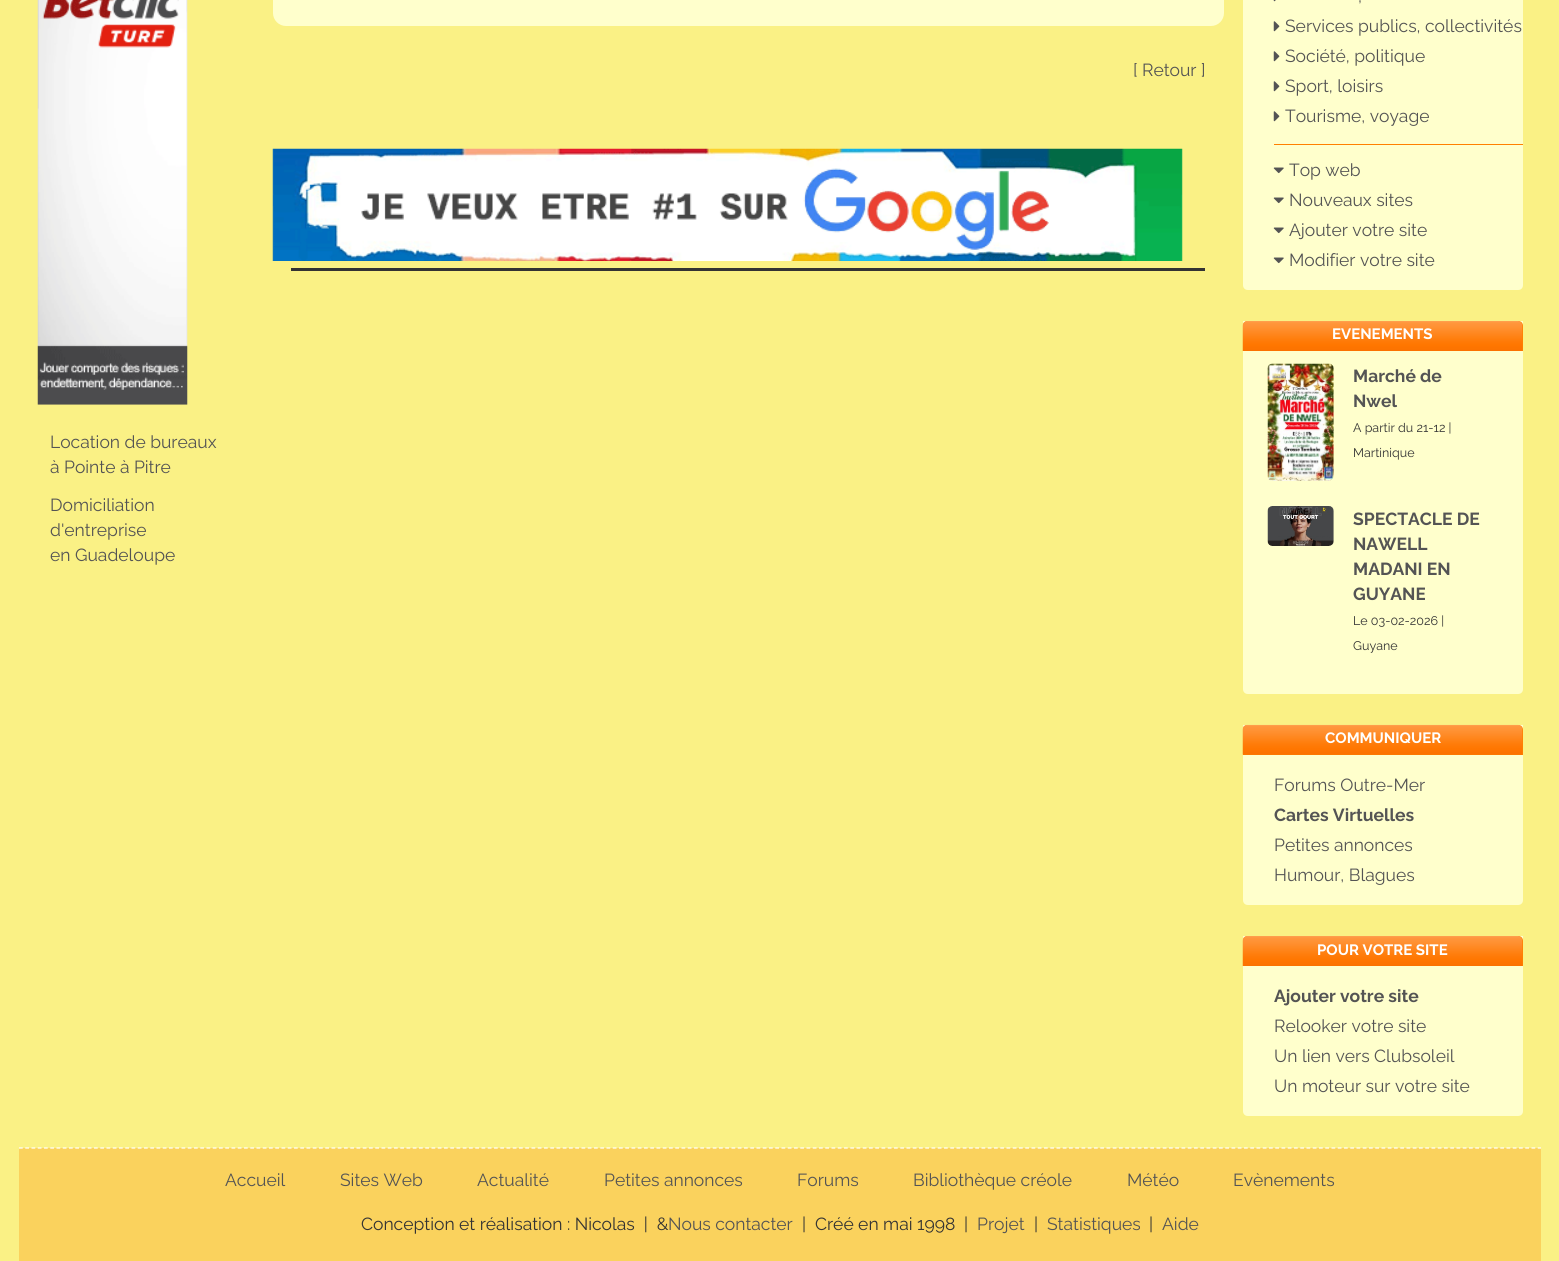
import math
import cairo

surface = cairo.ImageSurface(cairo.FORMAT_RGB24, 1559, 1261)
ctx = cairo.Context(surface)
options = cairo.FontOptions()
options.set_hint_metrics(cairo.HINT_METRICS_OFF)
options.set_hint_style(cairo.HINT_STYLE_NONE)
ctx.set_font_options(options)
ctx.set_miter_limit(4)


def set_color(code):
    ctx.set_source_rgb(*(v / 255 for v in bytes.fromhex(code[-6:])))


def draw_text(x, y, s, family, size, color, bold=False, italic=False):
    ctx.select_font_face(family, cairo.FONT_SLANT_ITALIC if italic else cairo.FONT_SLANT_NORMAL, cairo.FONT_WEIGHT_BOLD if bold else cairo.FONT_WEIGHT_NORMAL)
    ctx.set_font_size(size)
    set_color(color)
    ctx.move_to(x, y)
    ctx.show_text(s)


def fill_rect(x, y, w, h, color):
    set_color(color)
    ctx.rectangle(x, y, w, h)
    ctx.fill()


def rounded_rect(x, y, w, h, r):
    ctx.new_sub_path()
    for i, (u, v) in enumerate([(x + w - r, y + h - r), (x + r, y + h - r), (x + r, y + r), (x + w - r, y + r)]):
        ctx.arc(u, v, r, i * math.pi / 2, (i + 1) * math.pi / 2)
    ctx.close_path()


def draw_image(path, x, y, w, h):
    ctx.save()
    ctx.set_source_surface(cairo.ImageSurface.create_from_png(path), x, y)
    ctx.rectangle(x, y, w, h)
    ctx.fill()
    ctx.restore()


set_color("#faf185")
ctx.paint()
draw_image("assets/img1.png", 37, 0, 151, 405)
draw_text(50, 448, "Location de bureaux", "Raleway", 17.5, "#545454")
draw_text(50, 473, "à Pointe à Pitre", "Raleway", 17.5, "#545454")
draw_text(50, 511, "Domiciliation", "Raleway", 17.5, "#545454")
draw_text(50, 536, "d'entreprise", "Raleway", 17.5, "#545454")
draw_text(50, 561, "en Guadeloupe", "Raleway", 17.5, "#545454")
set_color("#ffffcc")
rounded_rect(273, -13, 951, 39, 13)
ctx.fill()
draw_text(1133, 76, "[ Retour ]", "Raleway", 17.5, "#545454")
draw_image("assets/img2.png", 272, 148, 911, 113)
fill_rect(291, 268, 914, 3, "#333333")
set_color("#ffffcc")
ctx.new_path()
ctx.move_to(1243, -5)
ctx.line_to(1523, -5)
ctx.line_to(1523, 285)
ctx.curve_to(1523, 288, 1521, 290, 1518, 290)
ctx.line_to(1248, 290)
ctx.curve_to(1245, 290, 1243, 288, 1243, 285)
ctx.close_path()
ctx.fill()
draw_image("assets/img3.png", 1273, 0, 3, 2)
draw_text(1358, 2, ",", "Raleway", 17.5, "#545454")
draw_image("assets/img4.png", 1273, 21, 7, 11)
draw_text(1285, 32, "Services publics, collectivités", "Raleway", 17.5, "#545454")
draw_image("assets/img4.png", 1273, 51, 7, 11)
draw_text(1285, 62, "Société, politique", "Raleway", 17.5, "#545454")
draw_image("assets/img4.png", 1273, 81, 7, 11)
draw_text(1285, 92, "Sport, loisirs", "Raleway", 17.5, "#545454")
draw_image("assets/img4.png", 1273, 111, 7, 11)
draw_text(1285, 122, "Tourisme, voyage", "Raleway", 17.5, "#545454")
fill_rect(1274, 144, 249, 1, "#ff8000")
draw_image("assets/img5.png", 1273, 167, 11, 7)
draw_text(1289, 176, "Top web", "Raleway", 17.5, "#545454")
draw_image("assets/img5.png", 1273, 197, 11, 7)
draw_text(1289, 206, "Nouveaux sites", "Raleway", 17.5, "#545454")
draw_image("assets/img5.png", 1273, 227, 11, 7)
draw_text(1289, 236, "Ajouter votre site", "Raleway", 17.5, "#545454")
draw_image("assets/img5.png", 1273, 257, 11, 7)
draw_text(1289, 266, "Modifier votre site", "Raleway", 17.5, "#545454")
set_color("#ffffcc")
ctx.new_path()
ctx.move_to(1243, 321)
ctx.line_to(1523, 321)
ctx.line_to(1523, 689)
ctx.curve_to(1523, 692, 1521, 694, 1518, 694)
ctx.line_to(1248, 694)
ctx.curve_to(1245, 694, 1243, 692, 1243, 689)
ctx.close_path()
ctx.fill()
set_color("#ff8000")
ctx.new_path()
ctx.move_to(1248, 321)
ctx.line_to(1518, 321)
ctx.curve_to(1521, 321, 1523, 323, 1523, 326)
ctx.line_to(1523, 351)
ctx.line_to(1243, 351)
ctx.line_to(1243, 326)
ctx.curve_to(1243, 323, 1245, 321, 1248, 321)
ctx.close_path()
ctx.fill()
draw_image("assets/img6.png", 1242, 321, 281, 30)
draw_text(1332, 339, "EVENEMENTS", "Raleway", 15, "#ffffff", bold=True)
draw_image("assets/img7.png", 1267, 363, 67, 118)
draw_text(1353, 382, "Marché de", "Raleway", 17.5, "#545454", bold=True)
draw_text(1353, 407, "Nwel", "Raleway", 17.5, "#545454", bold=True)
draw_text(1353, 432, "A partir du 21-12 |", "Raleway", 12.5, "#333333")
draw_text(1353, 457, "Martinique", "Raleway", 12.5, "#333333")
draw_image("assets/img8.png", 1267, 506, 67, 40)
draw_text(1353, 525, "SPECTACLE DE", "Raleway", 17.5, "#545454", bold=True)
draw_text(1353, 550, "NAWELL", "Raleway", 17.5, "#545454", bold=True)
draw_text(1353, 575, "MADANI EN", "Raleway", 17.5, "#545454", bold=True)
draw_text(1353, 600, "GUYANE", "Raleway", 17.5, "#545454", bold=True)
draw_text(1353, 625, "Le 03-02-2026 |", "Raleway", 12.5, "#333333")
draw_text(1353, 650, "Guyane", "Raleway", 12.5, "#333333")
set_color("#ffffcc")
ctx.new_path()
ctx.move_to(1243, 725)
ctx.line_to(1523, 725)
ctx.line_to(1523, 900)
ctx.curve_to(1523, 903, 1521, 905, 1518, 905)
ctx.line_to(1248, 905)
ctx.curve_to(1245, 905, 1243, 903, 1243, 900)
ctx.close_path()
ctx.fill()
set_color("#ff8000")
ctx.new_path()
ctx.move_to(1248, 725)
ctx.line_to(1518, 725)
ctx.curve_to(1521, 725, 1523, 727, 1523, 730)
ctx.line_to(1523, 755)
ctx.line_to(1243, 755)
ctx.line_to(1243, 730)
ctx.curve_to(1243, 727, 1245, 725, 1248, 725)
ctx.close_path()
ctx.fill()
draw_image("assets/img9.png", 1242, 724, 281, 31)
draw_text(1325, 743, "COMMUNIQUER", "Raleway", 15, "#ffffff", bold=True)
draw_text(1274, 791, "Forums Outre-Mer", "Raleway", 17.5, "#545454")
draw_text(1274, 821, "Cartes Virtuelles", "Raleway", 17.5, "#545454", bold=True)
draw_text(1274, 851, "Petites annonces", "Raleway", 17.5, "#545454")
draw_text(1274, 881, "Humour, Blagues", "Raleway", 17.5, "#545454")
set_color("#ffffcc")
ctx.new_path()
ctx.move_to(1243, 936)
ctx.line_to(1523, 936)
ctx.line_to(1523, 1111)
ctx.curve_to(1523, 1114, 1521, 1116, 1518, 1116)
ctx.line_to(1248, 1116)
ctx.curve_to(1245, 1116, 1243, 1114, 1243, 1111)
ctx.close_path()
ctx.fill()
set_color("#ff8000")
ctx.new_path()
ctx.move_to(1248, 936)
ctx.line_to(1518, 936)
ctx.curve_to(1521, 936, 1523, 938, 1523, 941)
ctx.line_to(1523, 966)
ctx.line_to(1243, 966)
ctx.line_to(1243, 941)
ctx.curve_to(1243, 938, 1245, 936, 1248, 936)
ctx.close_path()
ctx.fill()
draw_image("assets/img10.png", 1242, 936, 281, 30)
draw_text(1317, 955, "POUR VOTRE SITE", "Raleway", 15, "#ffffff", bold=True)
draw_text(1274, 1002, "Ajouter votre site", "Raleway", 17.5, "#545454", bold=True)
draw_text(1274, 1032, "Relooker votre site", "Raleway", 17.5, "#545454")
draw_text(1274, 1062, "Un lien vers Clubsoleil", "Raleway", 17.5, "#545454")
draw_text(1274, 1092, "Un moteur sur votre site", "Raleway", 17.5, "#545454")
fill_rect(19, 1148, 1522, 113, "#fad25d")
ctx.new_path()
ctx.move_to(19, 1148)
ctx.line_to(1541, 1148)
set_color("#ffffff")
ctx.set_line_width(1.2)
ctx.set_dash([3.75, 2.5])
ctx.stroke()
draw_text(225, 1186, "Accueil", "Raleway", 17.5, "#545454")
draw_text(340, 1186, "Sites Web", "Raleway", 17.5, "#545454")
draw_text(477, 1186, "Actualité", "Raleway", 17.5, "#545454")
draw_text(604, 1186, "Petites annonces", "Raleway", 17.5, "#545454")
draw_text(797, 1186, "Forums", "Raleway", 17.5, "#545454")
draw_text(913, 1186, "Bibliothèque créole", "Raleway", 17.5, "#545454")
draw_text(1127, 1186, "Météo", "Raleway", 17.5, "#545454")
draw_text(1233, 1186, "Evènements", "Raleway", 17.5, "#545454")
draw_text(361, 1230, "Conception et réalisation : Nicolas  |  &", "Raleway", 17.5, "#333333")
draw_text(668, 1230, "Nous contacter", "Raleway", 17.5, "#545454")
draw_text(802, 1230, "|  Créé en mai 1998", "Raleway", 17.5, "#333333")
draw_text(964, 1230, "|", "Raleway", 17.5, "#333333")
draw_text(977, 1230, "Projet", "Raleway", 17.5, "#545454")
draw_text(1034, 1230, "|", "Raleway", 17.5, "#333333")
draw_text(1047, 1230, "Statistiques", "Raleway", 17.5, "#545454")
draw_text(1149, 1230, "|", "Raleway", 17.5, "#333333")
draw_text(1162, 1230, "Aide", "Raleway", 17.5, "#545454")
surface.write_to_png("output.png")
